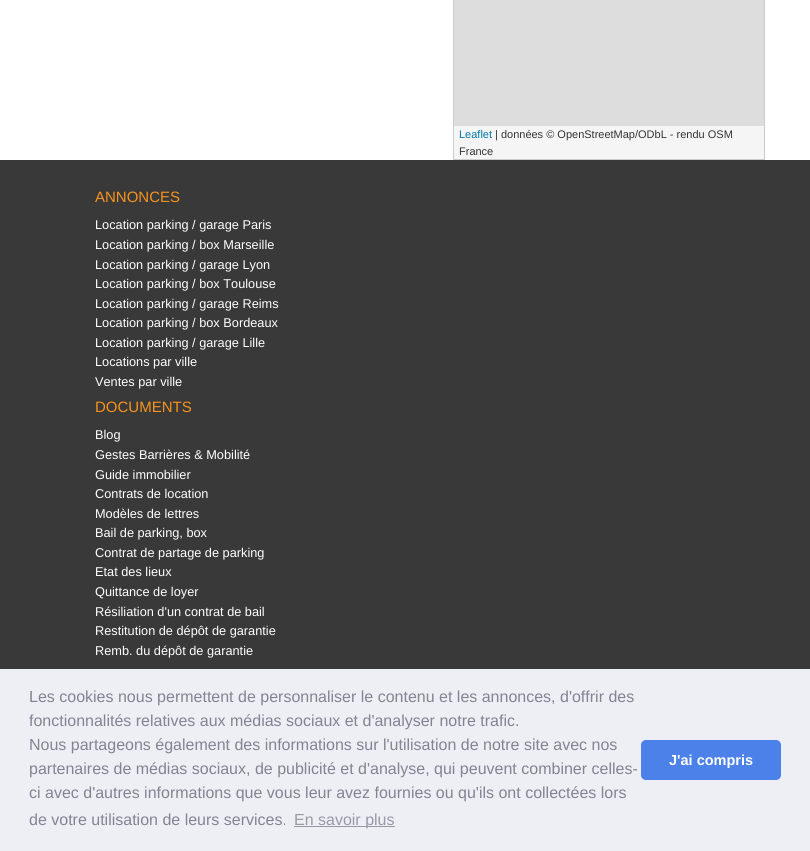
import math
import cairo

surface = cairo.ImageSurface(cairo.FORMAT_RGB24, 810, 851)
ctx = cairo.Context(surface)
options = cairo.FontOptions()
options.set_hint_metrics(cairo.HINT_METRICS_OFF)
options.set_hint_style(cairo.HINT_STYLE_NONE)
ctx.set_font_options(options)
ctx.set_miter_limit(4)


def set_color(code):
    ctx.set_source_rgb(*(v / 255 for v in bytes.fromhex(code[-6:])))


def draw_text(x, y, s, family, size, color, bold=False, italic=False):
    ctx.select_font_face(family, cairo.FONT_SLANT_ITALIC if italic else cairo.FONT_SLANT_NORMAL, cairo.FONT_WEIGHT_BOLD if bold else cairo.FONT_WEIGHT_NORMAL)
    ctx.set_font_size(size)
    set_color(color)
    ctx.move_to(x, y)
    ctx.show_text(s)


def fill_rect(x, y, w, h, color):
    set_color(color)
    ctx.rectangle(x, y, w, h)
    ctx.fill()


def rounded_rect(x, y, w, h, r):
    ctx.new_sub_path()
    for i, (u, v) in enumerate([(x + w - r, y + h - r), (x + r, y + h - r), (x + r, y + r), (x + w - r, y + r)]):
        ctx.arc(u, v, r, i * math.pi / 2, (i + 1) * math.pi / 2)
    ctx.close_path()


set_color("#ffffff")
ctx.paint()
ctx.rectangle(453.5, -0.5, 311, 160)
set_color("#cccccc")
ctx.set_line_width(1)
ctx.stroke()
fill_rect(454, 0, 310, 126, "#dddddd")
fill_rect(454, 126, 310, 33, "#f5f5f5")
draw_text(459, 138, "Leaflet", "Liberation Sans", 11, "#0078a8")
draw_text(495, 138, "| données © OpenStreetMap/ODbL - rendu OSM", "Liberation Sans", 11, "#333333")
draw_text(459, 155, "France", "Liberation Sans", 11, "#333333")
fill_rect(0, 160, 810, 509, "#393939")
draw_text(95, 202, "ANNONCES", "Liberation Sans", 15, "#f7941d")
draw_text(95, 229, "Location parking / garage Paris", "Liberation Sans", 12.75, "#ffffff")
draw_text(95, 249, "Location parking / box Marseille", "Liberation Sans", 12.75, "#ffffff")
draw_text(95, 269, "Location parking / garage Lyon", "Liberation Sans", 12.75, "#ffffff")
draw_text(95, 288, "Location parking / box Toulouse", "Liberation Sans", 12.75, "#ffffff")
draw_text(95, 308, "Location parking / garage Reims", "Liberation Sans", 12.75, "#ffffff")
draw_text(95, 327, "Location parking / box Bordeaux", "Liberation Sans", 12.75, "#ffffff")
draw_text(95, 347, "Location parking / garage Lille", "Liberation Sans", 12.75, "#ffffff")
draw_text(95, 366, "Locations par ville", "Liberation Sans", 12.75, "#ffffff")
draw_text(95, 386, "Ventes par ville", "Liberation Sans", 12.75, "#ffffff")
draw_text(95, 412, "DOCUMENTS", "Liberation Sans", 15, "#f7941d")
draw_text(95, 439, "Blog", "Liberation Sans", 12.75, "#ffffff")
draw_text(95, 459, "Gestes Barrières & Mobilité", "Liberation Sans", 12.75, "#ffffff")
draw_text(95, 479, "Guide immobilier", "Liberation Sans", 12.75, "#ffffff")
draw_text(95, 498, "Contrats de location", "Liberation Sans", 12.75, "#ffffff")
draw_text(95, 518, "Modèles de lettres", "Liberation Sans", 12.75, "#ffffff")
draw_text(95, 537, "Bail de parking, box", "Liberation Sans", 12.75, "#ffffff")
draw_text(95, 557, "Contrat de partage de parking", "Liberation Sans", 12.75, "#ffffff")
draw_text(95, 576, "Etat des lieux", "Liberation Sans", 12.75, "#ffffff")
draw_text(95, 596, "Quittance de loyer", "Liberation Sans", 12.75, "#ffffff")
draw_text(95, 616, "Résiliation d'un contrat de bail", "Liberation Sans", 12.75, "#ffffff")
draw_text(95, 635, "Restitution de dépôt de garantie", "Liberation Sans", 12.75, "#ffffff")
draw_text(95, 655, "Remb. du dépôt de garantie", "Liberation Sans", 12.75, "#ffffff")
fill_rect(0, 669, 810, 182, "#edeff5")
draw_text(29, 702, "Les cookies nous permettent de personnaliser le contenu et les annonces, d'offrir des", "Liberation Sans", 16, "#838391")
draw_text(29, 726, "fonctionnalités relatives aux médias sociaux et d'analyser notre trafic.", "Liberation Sans", 16, "#838391")
draw_text(29, 750, "Nous partageons également des informations sur l'utilisation de notre site avec nos", "Liberation Sans", 16, "#838391")
draw_text(29, 774, "partenaires de médias sociaux, de publicité et d'analyse, qui peuvent combiner celles-", "Liberation Sans", 16, "#838391")
draw_text(29, 798, "ci avec d'autres informations que vous leur avez fournies ou qu'ils ont collectées lors", "Liberation Sans", 16, "#838391")
draw_text(29, 825, "de votre utilisation de leurs services.", "Liberation Sans", 16, "#838391")
fill_rect(294, 826, 101, 1, "#9899a5")
draw_text(294, 825, "En savoir plus", "Liberation Sans", 16, "#9899a5")
set_color("#4b81e8")
rounded_rect(641, 740, 140, 40, 5)
ctx.fill()
draw_text(669, 765, "J'ai compris", "Liberation Sans", 14.5, "#ffffff", bold=True)
surface.write_to_png("output.png")
